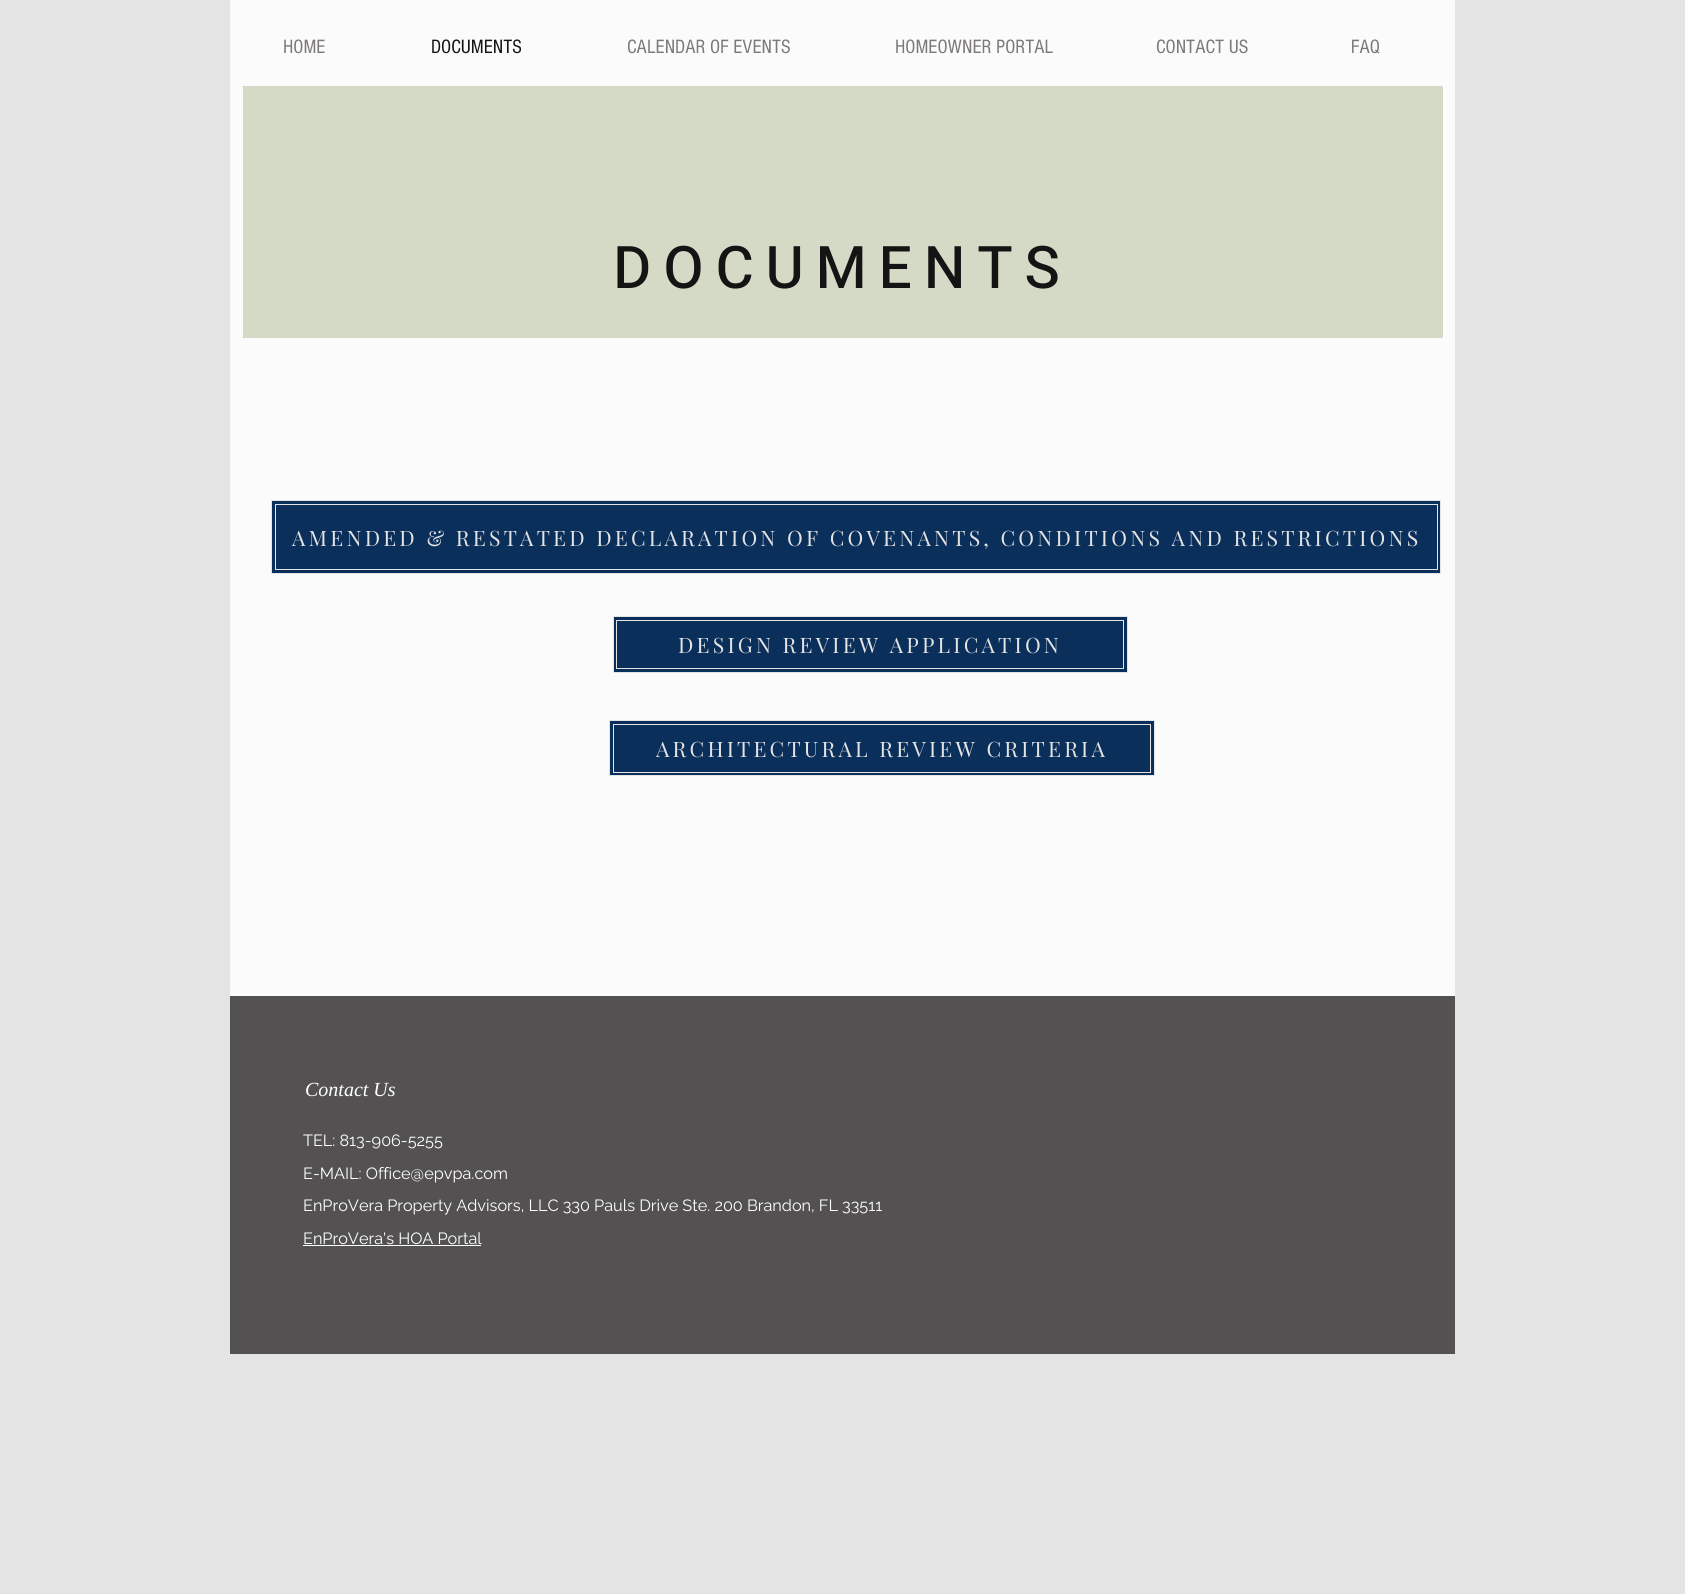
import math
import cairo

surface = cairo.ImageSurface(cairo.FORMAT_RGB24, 1685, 1594)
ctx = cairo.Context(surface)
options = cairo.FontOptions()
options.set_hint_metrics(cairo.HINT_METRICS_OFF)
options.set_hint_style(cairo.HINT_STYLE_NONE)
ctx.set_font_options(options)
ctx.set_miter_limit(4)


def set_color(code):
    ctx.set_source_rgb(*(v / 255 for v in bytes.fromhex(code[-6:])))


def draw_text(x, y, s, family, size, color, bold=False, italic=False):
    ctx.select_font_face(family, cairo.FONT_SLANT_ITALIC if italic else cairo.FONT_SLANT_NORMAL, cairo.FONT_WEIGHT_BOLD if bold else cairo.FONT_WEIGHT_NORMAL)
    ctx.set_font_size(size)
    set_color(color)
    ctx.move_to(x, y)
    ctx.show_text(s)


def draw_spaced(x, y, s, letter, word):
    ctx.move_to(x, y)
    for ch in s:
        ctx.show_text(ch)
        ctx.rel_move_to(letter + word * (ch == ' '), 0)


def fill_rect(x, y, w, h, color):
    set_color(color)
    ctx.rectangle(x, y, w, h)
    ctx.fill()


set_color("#e4e4e4")
ctx.paint()
fill_rect(230, 0, 1225, 996, "#fbfbfb")
draw_text(283, 53, "HOME", "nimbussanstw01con", 20, "#7d7979")
draw_text(431, 53, "DOCUMENTS", "nimbussanstw01con", 20, "#141414")
draw_text(627, 53, "CALENDAR OF EVENTS", "nimbussanstw01con", 20, "#7d7979")
draw_text(895, 53, "HOMEOWNER PORTAL", "nimbussanstw01con", 20, "#7d7979")
draw_text(1156, 53, "CONTACT US", "nimbussanstw01con", 20, "#7d7979")
draw_text(1351, 53, "FAQ", "nimbussanstw01con", 20, "#7d7979")
fill_rect(243, 86, 1200, 252, "#d5dac6")
ctx.select_font_face("Heebo Medium")
ctx.set_font_size(58.75)
set_color("#141414")
draw_spaced(613, 288, "DOCUMENTS", 11.75, 0)
set_color("#0b2f5b")
ctx.rectangle(271.5, 500.5, 1169, 73)
ctx.fill_preserve()
set_color("#e4e4e4")
ctx.set_line_width(1)
ctx.stroke()
ctx.rectangle(275.5, 504.5, 1162, 65)
ctx.stroke()
ctx.select_font_face("Playfair Display")
ctx.set_font_size(21.25)
draw_spaced(292, 546, "AMENDED & RESTATED DECLARATION OF COVENANTS, CONDITIONS AND RESTRICTIONS", 3.2, 0)
set_color("#0b2f5b")
ctx.rectangle(613.5, 616.5, 514, 56)
ctx.fill_preserve()
set_color("#e4e4e4")
ctx.stroke()
ctx.rectangle(616.5, 620.5, 507, 48)
ctx.stroke()
draw_spaced(678, 653, "DESIGN REVIEW APPLICATION", 3.2, 0)
set_color("#0b2f5b")
ctx.rectangle(609.5, 720.5, 545, 55)
ctx.fill_preserve()
set_color("#e4e4e4")
ctx.stroke()
ctx.rectangle(613.5, 724.5, 537, 48)
ctx.stroke()
draw_spaced(656, 757, "ARCHITECTURAL REVIEW CRITERIA", 3.2, 0)
fill_rect(230, 996, 1225, 358, "#535151")
draw_text(305, 1096, "Contact Us", "Liberation Serif", 20, "#ffffff", italic=True)
draw_text(303, 1146, "TEL: 813-906-5255", "Raleway", 16.25, "#ffffff")
draw_text(303, 1179, "E-MAIL: Office@epvpa.com", "Raleway", 16.25, "#ffffff")
draw_text(303, 1211, "EnProVera Property Advisors, LLC 330 Pauls Drive Ste. 200 Brandon, FL 33511", "Raleway", 16.25, "#ffffff")
draw_text(303, 1244, "EnProVera's HOA Portal", "Raleway", 16.25, "#ffffff")
fill_rect(303, 1245, 178, 1, "#ffffff")
surface.write_to_png("output.png")
